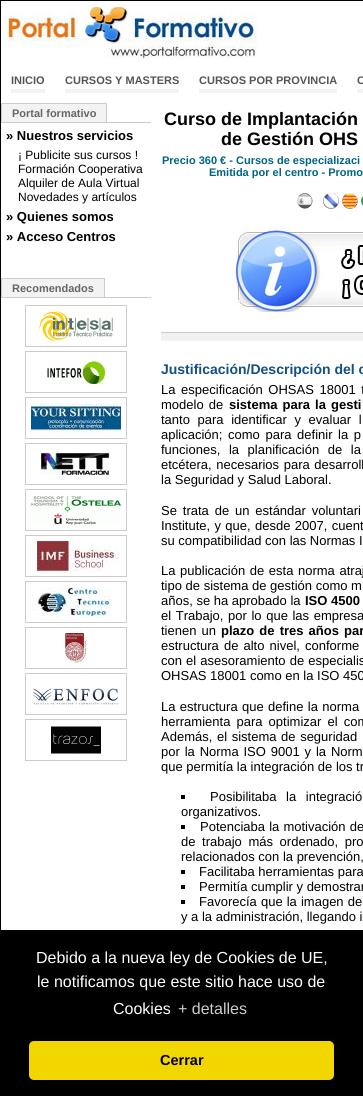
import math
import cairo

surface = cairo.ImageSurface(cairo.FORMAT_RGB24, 363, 1096)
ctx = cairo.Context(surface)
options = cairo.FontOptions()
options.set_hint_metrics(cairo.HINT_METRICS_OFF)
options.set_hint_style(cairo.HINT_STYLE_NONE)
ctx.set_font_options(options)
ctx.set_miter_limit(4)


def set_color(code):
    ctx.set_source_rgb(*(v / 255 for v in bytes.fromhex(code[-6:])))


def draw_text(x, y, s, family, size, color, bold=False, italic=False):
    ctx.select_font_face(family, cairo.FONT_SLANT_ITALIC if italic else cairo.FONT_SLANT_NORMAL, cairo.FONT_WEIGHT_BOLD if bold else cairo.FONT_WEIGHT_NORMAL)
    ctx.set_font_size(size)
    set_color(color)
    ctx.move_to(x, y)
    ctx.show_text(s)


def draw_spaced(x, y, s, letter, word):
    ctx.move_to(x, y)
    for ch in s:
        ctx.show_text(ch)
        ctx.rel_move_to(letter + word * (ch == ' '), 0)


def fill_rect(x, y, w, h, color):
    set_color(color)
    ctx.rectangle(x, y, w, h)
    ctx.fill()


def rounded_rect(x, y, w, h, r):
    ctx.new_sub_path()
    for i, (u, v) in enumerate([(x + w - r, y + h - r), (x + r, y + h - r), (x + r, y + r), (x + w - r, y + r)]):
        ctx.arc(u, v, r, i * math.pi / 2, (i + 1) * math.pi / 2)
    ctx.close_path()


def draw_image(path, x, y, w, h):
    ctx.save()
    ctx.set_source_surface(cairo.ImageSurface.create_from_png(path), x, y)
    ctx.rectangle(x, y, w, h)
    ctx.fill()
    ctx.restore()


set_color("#ffffff")
ctx.paint()
ctx.rectangle(0.5, 0.5, 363, 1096)
set_color("#000000")
ctx.set_line_width(1)
ctx.stroke()
draw_image("assets/img1.png", 1, 1, 256, 60)
fill_rect(11, 89, 34, 4, "#f3f3f3")
draw_text(11, 84, "INICIO", "Liberation Sans", 11, "#555555", bold=True)
fill_rect(65, 89, 114, 4, "#f3f3f3")
draw_text(65, 84, "CURSOS Y MASTERS", "Liberation Sans", 11, "#555555", bold=True)
fill_rect(199, 89, 138, 4, "#f3f3f3")
draw_text(199, 84, "CURSOS POR PROVINCIA", "Liberation Sans", 11, "#555555", bold=True)
fill_rect(357, 89, 6, 4, "#f3f3f3")
draw_text(357, 84, "C", "Liberation Sans", 11, "#555555", bold=True)
fill_rect(107, 122, 44, 1, "#cccccc")
set_color("#f3f3f3")
ctx.rectangle(1.5, 103.5, 105, 19)
ctx.fill_preserve()
set_color("#cccccc")
ctx.stroke()
draw_text(12, 117, "Portal formativo", "Liberation Sans", 11, "#666666", bold=True)
draw_text(6, 140, "» Nuestros servicios", "Liberation Sans", 13, "#000000", bold=True)
draw_text(18, 159, "¡ Publicite sus cursos !", "Liberation Sans", 12, "#000000")
draw_text(18, 173, "Formación Cooperativa", "Liberation Sans", 12, "#000000")
draw_text(18, 187, "Alquiler de Aula Virtual", "Liberation Sans", 12, "#000000")
draw_text(18, 201, "Novedades y artículos", "Liberation Sans", 12, "#000000")
draw_text(6, 221, "» Quienes somos", "Liberation Sans", 13, "#000000", bold=True)
draw_text(6, 241, "» Acceso Centros", "Liberation Sans", 13, "#000000", bold=True)
fill_rect(105, 297, 46, 1, "#cccccc")
set_color("#f3f3f3")
ctx.rectangle(1.5, 278.5, 103, 19)
ctx.fill_preserve()
set_color("#cccccc")
ctx.stroke()
draw_text(12, 292, "Recomendados", "Liberation Sans", 11, "#666666", bold=True)
ctx.rectangle(25.5, 305.5, 101, 41)
set_color("#cccccc")
ctx.stroke()
draw_image("assets/img2.png", 39, 311, 74, 30)
ctx.rectangle(25.5, 351.5, 101, 41)
ctx.stroke()
draw_image("assets/img3.png", 47, 361, 58, 23)
ctx.rectangle(25.5, 397.5, 101, 41)
ctx.stroke()
draw_image("assets/img4.png", 31, 403, 90, 30)
ctx.rectangle(25.5, 443.5, 101, 41)
ctx.stroke()
draw_image("assets/img5.png", 40, 452, 70, 23)
ctx.rectangle(25.5, 489.5, 101, 41)
ctx.stroke()
draw_image("assets/img6.png", 31, 496, 90, 29)
ctx.rectangle(25.5, 535.5, 101, 41)
ctx.stroke()
draw_image("assets/img7.png", 31, 541, 88, 30)
ctx.rectangle(25.5, 581.5, 101, 41)
ctx.stroke()
draw_image("assets/img8.png", 31, 587, 80, 30)
ctx.rectangle(25.5, 627.5, 101, 41)
ctx.stroke()
draw_image("assets/img9.png", 65, 633, 22, 30)
ctx.rectangle(25.5, 673.5, 101, 41)
ctx.stroke()
draw_image("assets/img10.png", 33, 688, 85, 17)
ctx.rectangle(25.5, 719.5, 101, 41)
ctx.stroke()
draw_image("assets/img11.png", 51, 726, 50, 28)
draw_text(164, 125, "Curso de Implantación", "Liberation Sans", 18, "#000000", bold=True)
draw_text(221, 145, "de Gestión OHS", "Liberation Sans", 18, "#000000", bold=True)
draw_text(162, 164, "Precio 360 € - Cursos de especializaci", "Liberation Sans", 11, "#006582", bold=True)
draw_text(209, 176, "Emitida por el centro - Promo", "Liberation Sans", 11, "#006582", bold=True)
draw_image("assets/img12.png", 297, 193, 16, 16)
draw_image("assets/img13.png", 323, 193, 16, 16)
draw_image("assets/img14.png", 342, 193, 16, 16)
draw_image("assets/img15.png", 361, 196, 2, 10)
draw_image("assets/img16.png", 236, 227, 127, 85)
fill_rect(161, 333, 202, 8, "#f1f1f1")
fill_rect(161, 332, 202, 1, "#cccccc")
draw_text(161, 374, "Justificación/Descripción del c", "Liberation Sans", 14, "#125083", bold=True)
ctx.select_font_face("Liberation Sans")
ctx.set_font_size(13)
set_color("#000000")
draw_spaced(161, 394, "La especificación OHSAS 18001 t", 0, 2)
draw_spaced(161, 409, "modelo de", 0, 1.5)
ctx.select_font_face("Liberation Sans", cairo.FONT_SLANT_NORMAL, cairo.FONT_WEIGHT_BOLD)
draw_spaced(229, 409, "sistema para la gesti", 0, 1.5)
ctx.select_font_face("Liberation Sans")
draw_spaced(161, 424, "tanto para identificar y evaluar l", 0, 4)
draw_spaced(161, 439, "aplicación; como para definir la p", 0, 2)
draw_spaced(161, 454, "funciones, la planificación de la", 0, 5)
draw_spaced(161, 469, "etcétera, necesarios para desarroll", 0, 1)
draw_text(161, 484, "la Seguridad y Salud Laboral.", "Liberation Sans", 13, "#000000")
draw_spaced(161, 515, "Se trata de un estándar voluntari", 0, 2.25)
draw_spaced(161, 530, "Institute, y que, desde 2007, cuent", 0, 0.75)
draw_text(161, 545, "su compatibilidad con las Normas I", "Liberation Sans", 13, "#000000")
draw_spaced(161, 575, "La publicación de esta norma atraj", 0, 1)
draw_text(161, 590, "tipo de sistema de gestión como m", "Liberation Sans", 13, "#000000")
draw_text(161, 605, "años, se ha aprobado la", "Liberation Sans", 13, "#000000")
draw_text(305, 605, "ISO 4500", "Liberation Sans", 13, "#000000", bold=True)
ctx.select_font_face("Liberation Sans")
draw_spaced(161, 620, "el Trabajo, por lo que las empresa", 0, 1)
draw_spaced(161, 635, "tienen un", 0, 1.5)
ctx.select_font_face("Liberation Sans", cairo.FONT_SLANT_NORMAL, cairo.FONT_WEIGHT_BOLD)
draw_spaced(221, 635, "plazo de tres años par", 0, 1.5)
ctx.select_font_face("Liberation Sans")
draw_spaced(161, 650, "estructura de alto nivel, conforme", 0, 1.5)
draw_spaced(161, 665, "con el asesoramiento de especialis", 0, 0.5)
draw_text(161, 680, "OHSAS 18001 como en la ISO 450", "Liberation Sans", 13, "#000000")
draw_spaced(161, 711, "La estructura que define la norma", 0, 0.75)
draw_spaced(161, 726, "herramienta para optimizar el com", 0, 2.5)
draw_spaced(161, 741, "Además, el sistema de seguridad", 0, 1)
draw_spaced(161, 756, "por la Norma ISO 9001 y la Norm", 0, 1.25)
draw_text(161, 771, "que permitía la integración de los tr", "Liberation Sans", 13, "#000000")
fill_rect(181, 795, 4, 4, "#000000")
draw_spaced(210, 801, "Posibilitaba la integració", 0, 6)
draw_text(181, 816, "organizativos.", "Liberation Sans", 13, "#000000")
fill_rect(181, 825, 4, 4, "#000000")
draw_spaced(200, 831, "Potenciaba la motivación de", 0, 0.5)
draw_spaced(181, 846, "de trabajo más ordenado, pro", 0, 3)
draw_text(181, 861, "relacionados con la prevención,", "Liberation Sans", 13, "#000000")
fill_rect(181, 870, 4, 4, "#000000")
draw_text(199, 876, "Facilitaba herramientas para", "Liberation Sans", 13, "#000000")
fill_rect(181, 885, 4, 4, "#000000")
draw_text(199, 891, "Permitía cumplir y demostrar", "Liberation Sans", 13, "#000000")
fill_rect(181, 900, 4, 4, "#000000")
draw_spaced(199, 906, "Favorecía que la imagen de", 0, 0.5)
draw_text(181, 921, "y a la administración, llegando i", "Liberation Sans", 13, "#000000")
fill_rect(1, 930, 362, 166, "#000000")
draw_text(36, 963, "Debido a la nueva ley de Cookies de UE,", "Liberation Sans", 16, "#ffffff")
draw_text(37, 987, "le notificamos que este sitio hace uso de", "Liberation Sans", 16, "#ffffff")
draw_text(113, 1014, "Cookies", "Liberation Sans", 16, "#ffffff")
draw_text(178, 1014, "+ detalles", "Liberation Sans", 16, "#cccccc")
set_color("#f1d600")
rounded_rect(29, 1041, 305, 39, 5)
ctx.fill()
draw_text(160, 1065, "Cerrar", "Liberation Sans", 14.5, "#000000", bold=True)
surface.write_to_png("output.png")
